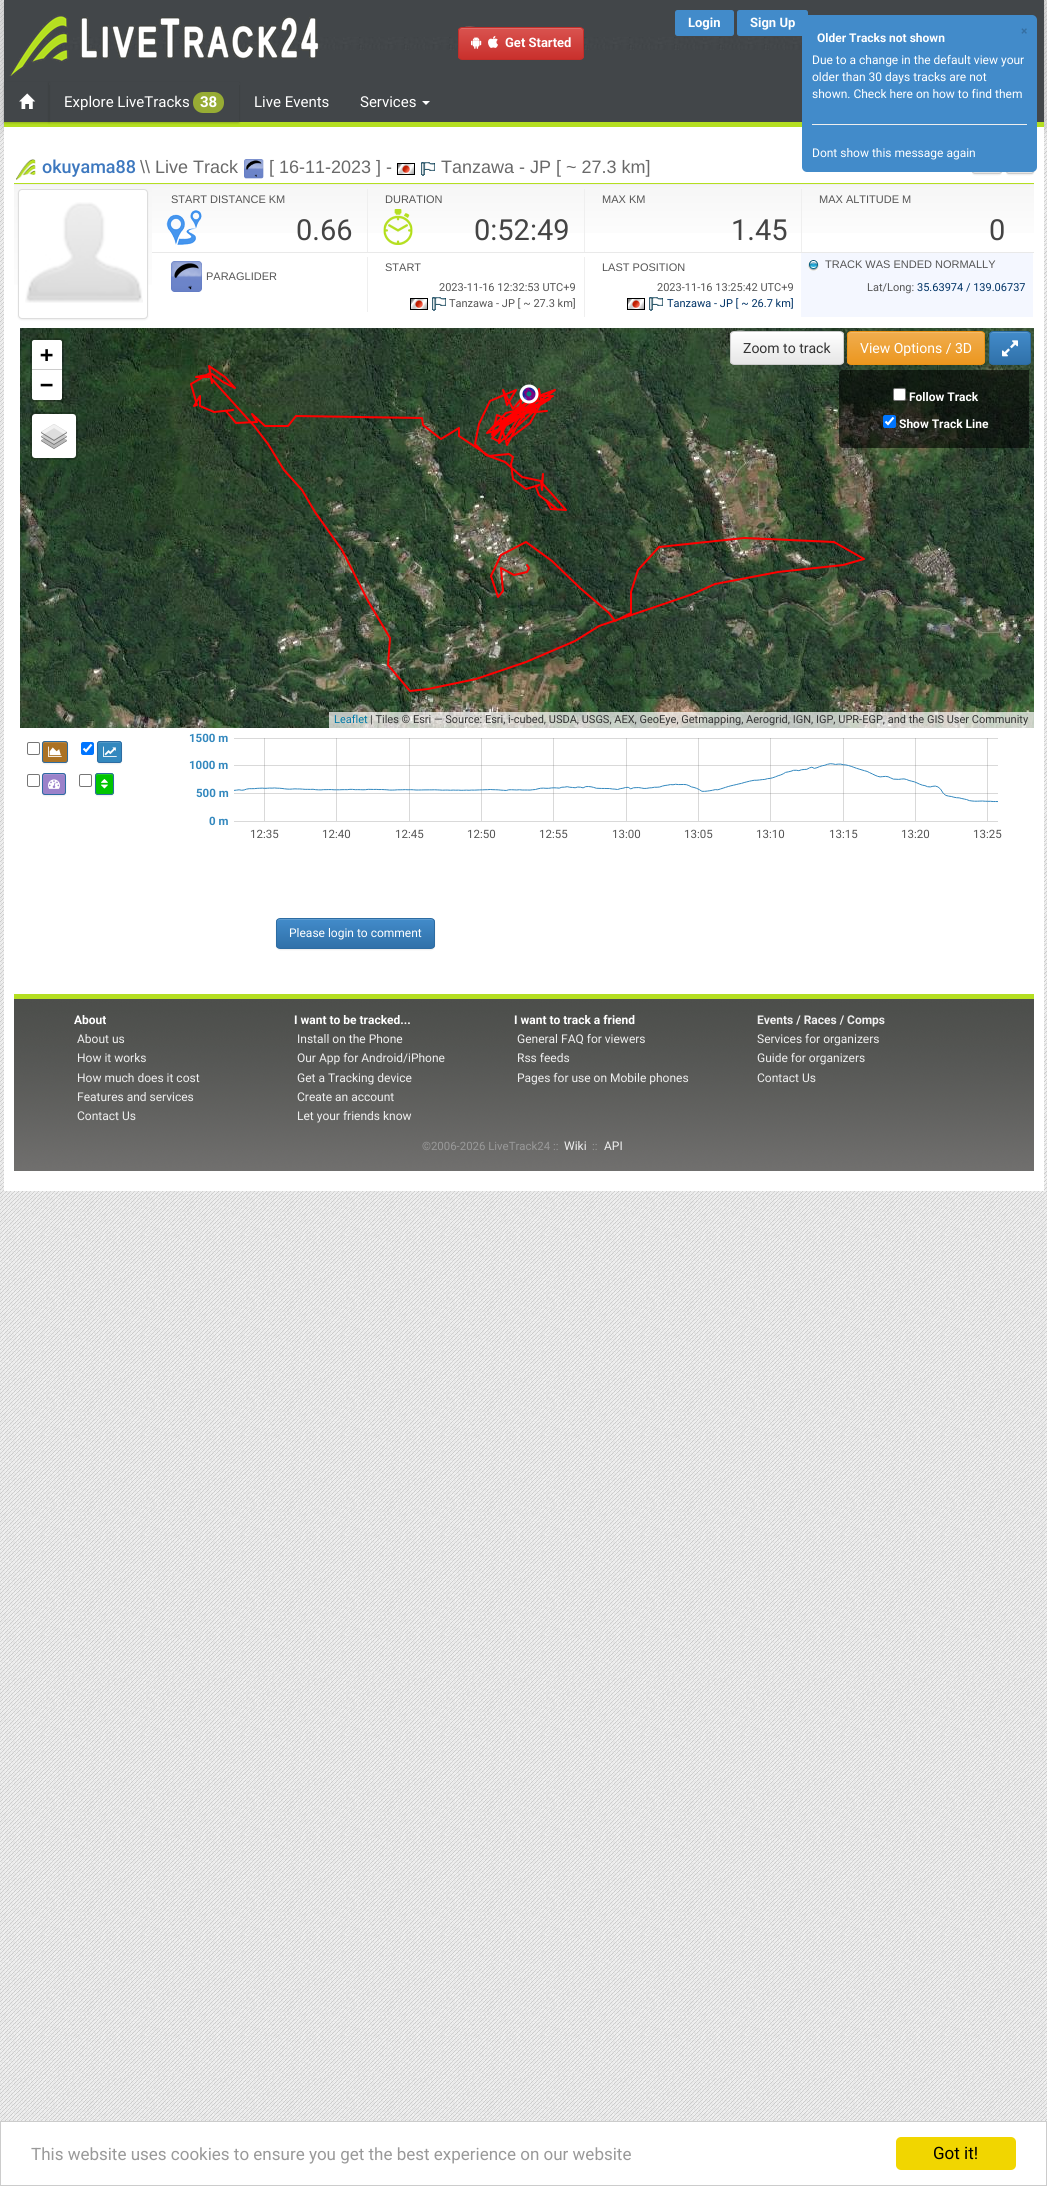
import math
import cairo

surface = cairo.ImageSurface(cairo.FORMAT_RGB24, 1047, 2186)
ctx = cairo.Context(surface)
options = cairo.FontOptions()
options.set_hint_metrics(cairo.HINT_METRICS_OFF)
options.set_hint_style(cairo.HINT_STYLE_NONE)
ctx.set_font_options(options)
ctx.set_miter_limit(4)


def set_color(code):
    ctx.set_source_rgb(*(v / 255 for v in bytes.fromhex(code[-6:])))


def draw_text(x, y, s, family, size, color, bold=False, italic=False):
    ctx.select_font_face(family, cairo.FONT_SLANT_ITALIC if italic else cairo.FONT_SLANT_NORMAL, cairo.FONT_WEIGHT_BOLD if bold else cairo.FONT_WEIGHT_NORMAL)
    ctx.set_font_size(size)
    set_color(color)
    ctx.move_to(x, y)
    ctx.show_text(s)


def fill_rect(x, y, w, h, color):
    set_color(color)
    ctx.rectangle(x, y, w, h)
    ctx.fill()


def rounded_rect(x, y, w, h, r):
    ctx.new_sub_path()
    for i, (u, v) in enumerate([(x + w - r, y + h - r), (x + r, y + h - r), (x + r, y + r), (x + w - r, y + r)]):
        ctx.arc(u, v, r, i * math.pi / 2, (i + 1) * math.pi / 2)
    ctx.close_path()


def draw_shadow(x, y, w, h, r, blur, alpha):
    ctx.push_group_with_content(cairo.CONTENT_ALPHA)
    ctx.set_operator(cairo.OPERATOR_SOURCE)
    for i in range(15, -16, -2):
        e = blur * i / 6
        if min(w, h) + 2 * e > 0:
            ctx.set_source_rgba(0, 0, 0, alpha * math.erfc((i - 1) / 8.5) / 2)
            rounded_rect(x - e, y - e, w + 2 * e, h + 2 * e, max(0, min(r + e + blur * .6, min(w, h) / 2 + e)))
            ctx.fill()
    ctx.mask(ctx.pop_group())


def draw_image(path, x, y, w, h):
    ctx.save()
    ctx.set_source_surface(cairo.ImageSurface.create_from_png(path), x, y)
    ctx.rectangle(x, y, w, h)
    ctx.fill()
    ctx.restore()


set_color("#ffffff")
ctx.paint()
draw_image("assets/img1.png", 0, 0, 1047, 2121)
set_color("#b4b4b4")
draw_shadow(4, 0, 1040, 127, 0, 7.5, 1)
fill_rect(4, 0, 1040, 122, "#424649")
draw_image("assets/img2.png", 44, 37, 758, 13)
draw_image("assets/img3.png", 9, 15, 311, 61)
set_color("#428bca")
rounded_rect(675, 10, 59, 26, 2.5)
ctx.fill()
draw_text(688, 27, "Login", "Roboto", 13, "#ffffff", bold=True)
set_color("#428bca")
rounded_rect(737, 10, 71, 26, 2.5)
ctx.fill()
draw_text(750, 27, "Sign Up", "Roboto", 13, "#ffffff", bold=True)
ctx.save()
rounded_rect(458, 27, 126, 33, 4)
ctx.clip()
gradient = cairo.LinearGradient(521, 28, 521, 59)
gradient.add_color_stop_rgba(0, 0.851, 0.325, 0.31, 1)
gradient.add_color_stop_rgba(1, 0.788, 0.188, 0.173, 1)
ctx.set_source(gradient)
ctx.rectangle(458, 28, 126, 31)
ctx.fill()
ctx.restore()
set_color("#df6c69")
ctx.new_path()
ctx.move_to(462, 29)
ctx.line_to(580, 29)
ctx.curve_to(582, 29, 583, 30, 583, 32)
ctx.curve_to(583, 30, 582, 28, 580, 28)
ctx.line_to(482, 28)
ctx.curve_to(481, 28, 459, 23, 459, 32)
ctx.curve_to(459, 30, 460, 29, 462, 29)
ctx.close_path()
ctx.fill()
rounded_rect(458.5, 27.5, 125, 32, 3.5)
set_color("#c12e2a")
ctx.set_line_width(1)
ctx.stroke()
draw_image("assets/img4.png", 471, 36, 11, 13)
draw_image("assets/img5.png", 488, 35, 10, 13)
draw_text(505, 47, "Get Started", "Roboto", 13, "#ffffff", bold=True)
fill_rect(4, 122, 1040, 5, "#b5df21")
ctx.save()
ctx.set_fill_rule(cairo.FILL_RULE_EVEN_ODD)
ctx.new_path()
ctx.move_to(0, 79)
ctx.line_to(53, 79)
ctx.line_to(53, 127)
ctx.line_to(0, 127)
ctx.close_path()
ctx.move_to(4, 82)
ctx.line_to(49, 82)
ctx.line_to(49, 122)
ctx.line_to(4, 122)
ctx.close_path()
ctx.clip()
set_color("#000000")
draw_shadow(4, 83, 45, 40, 0, 1, 0.2)
ctx.restore()
draw_image("assets/img6.png", 19, 93, 17, 16)
ctx.save()
ctx.set_fill_rule(cairo.FILL_RULE_EVEN_ODD)
ctx.new_path()
ctx.move_to(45, 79)
ctx.line_to(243, 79)
ctx.line_to(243, 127)
ctx.line_to(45, 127)
ctx.close_path()
ctx.move_to(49, 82)
ctx.line_to(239, 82)
ctx.line_to(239, 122)
ctx.line_to(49, 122)
ctx.close_path()
ctx.clip()
set_color("#000000")
draw_shadow(49, 83, 190, 40, 0, 1, 0.2)
ctx.restore()
fill_rect(49, 83, 1, 2, "#424649")
draw_text(64, 107, "Explore LiveTracks", "Roboto", 15, "#ffffff")
set_color("#97ac34")
rounded_rect(193, 92, 31, 21, 10)
ctx.fill()
draw_text(200, 107, "38", "Roboto", 15, "#ffffff", bold=True)
fill_rect(239, 83, 1, 2, "#424649")
draw_text(254, 107, "Live Events", "Roboto", 15, "#ffffff")
draw_text(360, 107, "Services", "Roboto", 15, "#ffffff")
ctx.new_path()
ctx.move_to(422, 101)
ctx.line_to(430, 101)
ctx.line_to(426, 105)
ctx.close_path()
ctx.fill()
fill_rect(4, 127, 1040, 1064, "#ffffff")
draw_image("assets/img7.png", 16, 159, 20, 21)
fill_rect(14, 183, 1020, 1, "#b5df21")
draw_text(42, 173, "okuyama88", "Roboto Medium", 18, "#3d78bf")
draw_text(140, 173, "\\\\ Live Track", "Liberation Sans", 18, "#696969")
draw_image("assets/img8.png", 244, 159, 20, 20)
draw_text(269, 173, "[ 16-11-2023 ] -", "Liberation Sans", 18, "#696969")
draw_image("assets/img9.png", 397, 163, 18, 12)
draw_image("assets/img10.png", 421, 162, 14, 14)
draw_text(441, 173, "Tanzawa - JP [ ~ 27.3 km]", "Liberation Sans", 18, "#696969")
set_color("#000000")
draw_shadow(972, 147, 30, 28, 3, 0.5, 0.07)
gradient = cairo.LinearGradient(987, 147, 987, 173)
gradient.add_color_stop_rgba(0, 1, 1, 1, 1)
gradient.add_color_stop_rgba(1, 0.902, 0.902, 0.902, 1)
ctx.set_source(gradient)
ctx.rectangle(972, 172, 30, 1)
ctx.fill()
rounded_rect(972.5, 146.5, 29, 27, 2.5)
set_color("#cccccc")
ctx.stroke()
set_color("#000000")
draw_shadow(1006, 147, 28, 28, 3, 0.5, 0.07)
ctx.save()
rounded_rect(1006, 146, 28, 28, 3)
ctx.clip()
gradient = cairo.LinearGradient(1020, 147, 1020, 173)
gradient.add_color_stop_rgba(0, 1, 1, 1, 1)
gradient.add_color_stop_rgba(1, 0.902, 0.902, 0.902, 1)
ctx.set_source(gradient)
ctx.rectangle(1006, 171, 28, 2)
ctx.fill()
ctx.restore()
rounded_rect(1006.5, 146.5, 27, 27, 2.5)
set_color("#cccccc")
ctx.stroke()
gradient = cairo.LinearGradient(83, 185, 83, 323)
gradient.add_color_stop_rgba(0, 0.965, 0.965, 0.965, 1)
gradient.add_color_stop_rgba(1, 1, 1, 1, 1)
ctx.set_source(gradient)
ctx.rectangle(14, 185, 138, 100)
ctx.fill()
fill_rect(14, 184, 1020, 1, "#efefef")
set_color("#000000")
draw_shadow(18, 190, 130, 130, 4, 1, 0.07)
set_color("#ffffff")
rounded_rect(18.5, 189.5, 129, 129, 3.5)
ctx.fill_preserve()
set_color("#dddddd")
ctx.stroke()
draw_image("assets/img11.png", 25, 202, 118, 101)
gradient = cairo.LinearGradient(593, 185, 593, 252)
gradient.add_color_stop_rgba(0, 0.965, 0.965, 0.965, 1)
gradient.add_color_stop_rgba(1, 1, 1, 1, 1)
ctx.set_source(gradient)
ctx.rectangle(152, 185, 882, 48)
ctx.fill()
fill_rect(152, 252, 882, 1, "#e9e9e9")
draw_image("assets/img12.png", 166, 210, 36, 35)
fill_rect(367, 189, 1, 63, "#efefef")
draw_text(171, 203, "START DISTANCE KM", "Liberation Sans", 11, "#555555")
draw_text(296, 240, "0.66", "Roboto", 29, "#444444")
draw_image("assets/img13.png", 383, 209, 30, 36)
fill_rect(584, 189, 1, 63, "#efefef")
draw_text(385, 203, "DURATION", "Liberation Sans", 11, "#555555")
draw_text(474, 240, "0:52:49", "Roboto", 29, "#444444")
fill_rect(801, 189, 1, 63, "#efefef")
draw_text(602, 203, "MAX KM", "Liberation Sans", 11, "#555555")
draw_text(731, 240, "1.45", "Roboto", 29, "#444444")
draw_text(819, 203, "MAX ALTITUDE M", "Liberation Sans", 11, "#555555")
draw_text(989, 240, "0", "Roboto", 29, "#444444")
fill_rect(367, 257, 1, 55, "#efefef")
draw_image("assets/img14.png", 171, 261, 31, 31)
draw_text(206, 280, "PARAGLIDER", "Liberation Sans", 11, "#555555")
fill_rect(584, 257, 1, 60, "#efefef")
draw_text(385, 271, "START", "Liberation Sans", 11, "#555555")
draw_text(439, 291, "2023-11-16 12:32:53 UTC+9", "Roboto", 11, "#555555")
draw_image("assets/img9.png", 410, 298, 18, 12)
draw_image("assets/img10.png", 432, 297, 14, 14)
draw_text(449, 307, "Tanzawa - JP [ ~ 27.3 km]", "Roboto", 11, "#555555")
draw_text(602, 271, "LAST POSITION", "Liberation Sans", 11, "#555555")
draw_text(657, 291, "2023-11-16 13:25:42 UTC+9", "Roboto", 11, "#555555")
draw_image("assets/img9.png", 627, 298, 18, 12)
draw_image("assets/img10.png", 649, 297, 14, 14)
draw_text(667, 307, "Tanzawa - JP [ ~ 26.7 km]", "Roboto", 11, "#003366")
fill_rect(801, 253, 232, 64, "#f4f7ff")
draw_image("assets/img15.png", 808, 260, 11, 11)
draw_text(825, 268, "TRACK WAS ENDED NORMALLY", "Liberation Sans", 11, "#555555")
draw_text(867, 291, "Lat/Long:", "Roboto", 11, "#555555")
draw_text(917, 291, "35.63974 / 139.06737", "Roboto", 11, "#003366")
draw_image("assets/img20.png", 726, 328, 256, 245)
ctx.save()
rounded_rect(730, 331, 114, 34, 4)
ctx.clip()
gradient = cairo.LinearGradient(787, 332, 787, 364)
gradient.add_color_stop_rgba(0, 1, 1, 1, 1)
gradient.add_color_stop_rgba(1, 0.902, 0.902, 0.902, 1)
ctx.set_source(gradient)
ctx.rectangle(730, 332, 114, 32)
ctx.fill()
ctx.restore()
set_color("#ffffff")
ctx.new_path()
ctx.move_to(734, 333)
ctx.line_to(840, 333)
ctx.curve_to(842, 333, 843, 334, 843, 336)
ctx.curve_to(843, 334, 842, 332, 840, 332)
ctx.line_to(752, 332)
ctx.curve_to(750, 332, 731, 327, 731, 336)
ctx.curve_to(731, 334, 732, 333, 734, 333)
ctx.close_path()
ctx.fill()
rounded_rect(730.5, 331.5, 113, 33, 3.5)
set_color("#cccccc")
ctx.stroke()
draw_text(743, 353, "Zoom to track", "Roboto", 14, "#333333")
draw_image("assets/img21.png", 982, 328, 52, 245)
ctx.save()
rounded_rect(847, 331, 138, 34, 4)
ctx.clip()
gradient = cairo.LinearGradient(916, 332, 916, 364)
gradient.add_color_stop_rgba(0, 0.941, 0.678, 0.306, 1)
gradient.add_color_stop_rgba(1, 0.925, 0.592, 0.122, 1)
ctx.set_source(gradient)
ctx.rectangle(847, 332, 138, 32)
ctx.fill()
ctx.restore()
set_color("#f2b968")
ctx.new_path()
ctx.move_to(851, 333)
ctx.line_to(981, 333)
ctx.curve_to(983, 333, 984, 334, 984, 336)
ctx.curve_to(984, 334, 984, 332, 982, 332)
ctx.line_to(850, 332)
ctx.curve_to(848, 332, 848, 334, 848, 336)
ctx.curve_to(848, 334, 849, 333, 851, 333)
ctx.close_path()
ctx.fill()
rounded_rect(847.5, 331.5, 137, 33, 3.5)
set_color("#eb9316")
ctx.stroke()
draw_text(860, 353, "View Options / 3D", "Roboto", 14, "#ffffff")
ctx.save()
rounded_rect(989, 331, 42, 34, 4)
ctx.clip()
gradient = cairo.LinearGradient(1010, 332, 1010, 364)
gradient.add_color_stop_rgba(0, 0.259, 0.545, 0.792, 1)
gradient.add_color_stop_rgba(1, 0.188, 0.443, 0.663, 1)
ctx.set_source(gradient)
ctx.rectangle(989, 332, 42, 32)
ctx.fill()
ctx.restore()
set_color("#5e9cd1")
ctx.new_path()
ctx.move_to(993, 333)
ctx.line_to(1027, 333)
ctx.curve_to(1029, 333, 1030, 334, 1030, 336)
ctx.curve_to(1030, 331, 1025, 332, 1021, 332)
ctx.line_to(999, 332)
ctx.curve_to(995, 332, 990, 331, 990, 336)
ctx.curve_to(990, 334, 991, 333, 993, 333)
ctx.close_path()
ctx.fill()
rounded_rect(989.5, 331.5, 41, 33, 3.5)
set_color("#2d6ca2")
ctx.stroke()
draw_image("assets/img16.png", 1002, 340, 16, 17)
draw_image("assets/img17.png", 20, 328, 194, 245)
draw_image("assets/img18.png", 214, 328, 256, 245)
draw_image("assets/img19.png", 470, 328, 256, 245)
draw_image("assets/img22.png", 20, 573, 194, 155)
draw_image("assets/img23.png", 214, 573, 256, 155)
draw_image("assets/img24.png", 470, 573, 256, 155)
draw_image("assets/img25.png", 726, 573, 256, 155)
draw_image("assets/img26.png", 982, 573, 52, 155)
draw_image("assets/img27.png", 190, 365, 675, 327)
rounded_rect(31, 339, 32, 62, 3)
ctx.set_source_rgba(0, 0, 0, 0.2)
ctx.set_line_width(2)
ctx.stroke()
set_color("#ffffff")
ctx.new_path()
ctx.move_to(34, 340)
ctx.line_to(60, 340)
ctx.curve_to(61, 340, 62, 341, 62, 342)
ctx.line_to(62, 370)
ctx.line_to(32, 370)
ctx.line_to(32, 342)
ctx.curve_to(32, 341, 33, 340, 34, 340)
ctx.close_path()
ctx.fill()
fill_rect(32, 369, 30, 1, "#cccccc")
draw_text(40, 362, "+", "DejaVu Sans Mono", 22, "#000000", bold=True)
set_color("#ffffff")
ctx.new_path()
ctx.move_to(32, 370)
ctx.line_to(62, 370)
ctx.line_to(62, 398)
ctx.curve_to(62, 399, 61, 400, 60, 400)
ctx.line_to(34, 400)
ctx.curve_to(33, 400, 32, 399, 32, 398)
ctx.close_path()
ctx.fill()
draw_text(40, 392, "−", "DejaVu Sans Mono", 22, "#000000", bold=True)
set_color("#ffffff")
rounded_rect(32, 414, 44, 44, 3)
ctx.fill()
rounded_rect(31, 413, 46, 46, 4)
ctx.set_source_rgba(0, 0, 0, 0.2)
ctx.stroke()
draw_image("assets/img28.png", 41, 424, 26, 25)
ctx.set_source_rgba(1, 1, 1, 0.7)
ctx.rectangle(329, 712, 705, 16)
ctx.fill()
draw_text(334, 723, "Leaflet", "Roboto", 11, "#0078a8")
draw_text(370, 723, "| Tiles © Esri — Source: Esri, i-cubed, USDA, USGS, AEX, GeoEye, Getmapping, Aerogrid, IGN, IGP, UPR-EGP, and the GIS User Community", "Roboto", 11, "#333333")
ctx.set_source_rgba(0, 0, 0, 0.6)
ctx.new_path()
ctx.move_to(843, 370)
ctx.line_to(1029, 370)
ctx.line_to(1029, 448)
ctx.line_to(843, 448)
ctx.curve_to(841, 448, 839, 446, 839, 444)
ctx.line_to(839, 374)
ctx.curve_to(839, 372, 841, 370, 843, 370)
ctx.close_path()
ctx.fill()
set_color("#ffffff")
rounded_rect(893.5, 388.5, 12, 12, 1.5)
ctx.fill_preserve()
set_color("#767676")
ctx.set_line_width(1)
ctx.stroke()
draw_text(909, 401, "Follow Track", "Roboto", 12, "#ffffff", bold=True)
set_color("#0075ff")
rounded_rect(883, 415, 13, 13, 2)
ctx.fill()
ctx.new_path()
ctx.move_to(885.5, 421.5)
ctx.line_to(888, 424)
ctx.line_to(893.5, 417.5)
set_color("#ffffff")
ctx.set_line_width(2.1)
ctx.stroke()
draw_text(899, 428, "Show Track Line", "Roboto", 12, "#ffffff", bold=True)
rounded_rect(27.5, 742.5, 12, 12, 1.5)
set_color("#767676")
ctx.set_line_width(1)
ctx.stroke()
set_color("#000000")
draw_shadow(42, 742, 26, 22, 3, 0.5, 0.07)
set_color("#ab7224")
rounded_rect(42, 741, 26, 22, 3)
ctx.fill()
set_color("#b88745")
ctx.new_path()
ctx.move_to(45, 743)
ctx.line_to(62, 743)
ctx.curve_to(65, 743, 66.5, 743.5, 67, 744.5)
ctx.curve_to(67, 741.5, 64.5, 742, 61.5, 742)
ctx.line_to(48.5, 742)
ctx.curve_to(45.5, 742, 43, 741.5, 43, 744.5)
ctx.curve_to(43.5, 743.5, 44, 743, 45, 743)
ctx.close_path()
ctx.fill()
rounded_rect(42.5, 741.5, 25, 21, 2.5)
set_color("#2d6ca2")
ctx.stroke()
draw_image("assets/img29.png", 48, 746, 14, 11)
set_color("#0075ff")
rounded_rect(81, 742, 13, 13, 2)
ctx.fill()
ctx.new_path()
ctx.move_to(83.5, 748.5)
ctx.line_to(86, 751)
ctx.line_to(91.5, 744.5)
set_color("#ffffff")
ctx.set_line_width(2.1)
ctx.stroke()
set_color("#000000")
draw_shadow(97, 742, 25, 22, 3, 0.5, 0.07)
set_color("#3388be")
rounded_rect(97, 741, 25, 22, 3)
ctx.fill()
set_color("#529ac8")
ctx.set_fill_rule(cairo.FILL_RULE_EVEN_ODD)
ctx.new_path()
ctx.move_to(100, 743)
ctx.line_to(120, 743)
ctx.line_to(121, 745)
ctx.curve_to(121, 741.5, 119, 742, 116, 742)
ctx.line_to(103, 742)
ctx.curve_to(99.5, 742, 98, 741.5, 98, 745)
ctx.curve_to(98, 744, 99, 743, 100, 743)
ctx.close_path()
ctx.move_to(98, 760.5)
ctx.line_to(98, 758)
ctx.close_path()
ctx.fill()
rounded_rect(97.5, 741.5, 24, 21, 2.5)
set_color("#2d6ca2")
ctx.set_line_width(1)
ctx.stroke()
draw_image("assets/img30.png", 103, 746, 14, 11)
rounded_rect(27.5, 774.5, 12, 12, 1.5)
set_color("#767676")
ctx.stroke()
set_color("#000000")
draw_shadow(42, 774, 24, 22, 3, 0.5, 0.07)
set_color("#9b82ca")
rounded_rect(42, 773, 24, 22, 3)
ctx.fill()
set_color("#aa95d2")
ctx.new_path()
ctx.move_to(45, 775)
ctx.curve_to(49.5, 775, 62.5, 773.5, 65, 776)
ctx.curve_to(65, 775, 64, 774, 63, 774)
ctx.line_to(45, 774)
ctx.curve_to(44, 774, 43, 775, 43, 776)
ctx.line_to(43, 776.5)
ctx.curve_to(43.5, 775.5, 44, 775, 45, 775)
ctx.close_path()
ctx.move_to(65, 791)
ctx.line_to(65, 793)
ctx.close_path()
ctx.move_to(43, 792.5)
ctx.line_to(43, 788)
ctx.close_path()
ctx.fill()
rounded_rect(42.5, 773.5, 23, 21, 2.5)
set_color("#2d6ca2")
ctx.stroke()
draw_image("assets/img31.png", 48, 779, 12, 10)
rounded_rect(79.5, 774.5, 12, 12, 1.5)
set_color("#767676")
ctx.stroke()
set_color("#000000")
draw_shadow(95, 774, 19, 22, 3, 0.5, 0.07)
set_color("#00c500")
rounded_rect(95, 773, 19, 22, 3)
ctx.fill()
set_color("#26ce26")
ctx.set_fill_rule(cairo.FILL_RULE_WINDING)
ctx.new_path()
ctx.move_to(98, 775)
ctx.line_to(111, 775)
ctx.curve_to(112, 775, 113, 776, 113, 777)
ctx.curve_to(113, 774, 111.5, 774, 109, 774)
ctx.line_to(100, 774)
ctx.curve_to(97.5, 774, 96, 774, 96, 777)
ctx.curve_to(96, 776, 97, 775, 98, 775)
ctx.close_path()
ctx.fill()
rounded_rect(95.5, 773.5, 18, 21, 2.5)
set_color("#2d6ca2")
ctx.stroke()
draw_image("assets/img32.png", 101, 779, 7, 10)
draw_text(189, 742, "1500 m", "Roboto", 11.5, "#3388be", bold=True)
draw_text(189, 769, "1000 m", "Roboto", 11.5, "#3388be", bold=True)
draw_text(196, 797, "500 m", "Roboto", 11.5, "#3388be", bold=True)
draw_text(209, 825, "0 m", "Roboto", 11.5, "#3388be", bold=True)
draw_text(250, 838, "12:35", "Roboto", 11.5, "#555555")
draw_text(322, 838, "12:40", "Roboto", 11.5, "#555555")
draw_text(395, 838, "12:45", "Roboto", 11.5, "#555555")
draw_text(467, 838, "12:50", "Roboto", 11.5, "#555555")
draw_text(539, 838, "12:55", "Roboto", 11.5, "#555555")
draw_text(612, 838, "13:00", "Roboto", 11.5, "#555555")
draw_text(684, 838, "13:05", "Roboto", 11.5, "#555555")
draw_text(756, 838, "13:10", "Roboto", 11.5, "#555555")
draw_text(829, 838, "13:15", "Roboto", 11.5, "#555555")
draw_text(901, 838, "13:20", "Roboto", 11.5, "#555555")
draw_text(973, 838, "13:25", "Roboto", 11.5, "#555555")
draw_image("assets/img33.png", 234, 738, 764, 84)
set_color("#000000")
draw_shadow(276, 919, 159, 31, 4, 0.5, 0.07)
ctx.save()
rounded_rect(276, 918, 159, 31, 4)
ctx.clip()
gradient = cairo.LinearGradient(356, 919, 356, 948)
gradient.add_color_stop_rgba(0, 0.259, 0.545, 0.792, 1)
gradient.add_color_stop_rgba(1, 0.188, 0.443, 0.663, 1)
ctx.set_source(gradient)
ctx.rectangle(276, 919, 159, 29)
ctx.fill()
ctx.restore()
set_color("#5e9cd1")
ctx.new_path()
ctx.move_to(280, 920)
ctx.line_to(431, 920)
ctx.curve_to(433, 920, 434, 921, 434, 923)
ctx.curve_to(434, 921, 433, 919, 431, 919)
ctx.line_to(279, 919)
ctx.curve_to(277, 919, 277, 921, 277, 923)
ctx.curve_to(277, 921, 278, 920, 280, 920)
ctx.close_path()
ctx.fill()
rounded_rect(276.5, 918.5, 158, 30, 3.5)
set_color("#2d6ca2")
ctx.stroke()
draw_text(289, 937, "Please login to comment", "Roboto", 12, "#ffffff")
fill_rect(14, 994, 1020, 5, "#b5df21")
draw_image("assets/img34.png", 14, 999, 1020, 172)
draw_text(74, 1024, "About", "Roboto", 12, "#ffffff", bold=True)
draw_text(77, 1043, "About us", "Roboto", 12, "#f0f0f0")
draw_text(77, 1062, "How it works", "Roboto", 12, "#f0f0f0")
draw_text(77, 1082, "How much does it cost", "Roboto", 12, "#f0f0f0")
draw_text(77, 1101, "Features and services", "Roboto", 12, "#f0f0f0")
draw_text(77, 1120, "Contact Us", "Roboto", 12, "#f0f0f0")
draw_text(294, 1024, "I want to be tracked...", "Roboto", 12, "#ffffff", bold=True)
draw_text(297, 1043, "Install on the Phone", "Roboto", 12, "#f0f0f0")
draw_text(297, 1062, "Our App for Android/iPhone", "Roboto", 12, "#f0f0f0")
draw_text(297, 1082, "Get a Tracking device", "Roboto", 12, "#f0f0f0")
draw_text(297, 1101, "Create an account", "Roboto", 12, "#f0f0f0")
draw_text(297, 1120, "Let your friends know", "Roboto", 12, "#f0f0f0")
draw_text(514, 1024, "I want to track a friend", "Roboto", 12, "#ffffff", bold=True)
draw_text(517, 1043, "General FAQ for viewers", "Roboto", 12, "#f0f0f0")
draw_text(517, 1062, "Rss feeds", "Roboto", 12, "#f0f0f0")
draw_text(517, 1082, "Pages for use on Mobile phones", "Roboto", 12, "#f0f0f0")
draw_text(757, 1024, "Events / Races / Comps", "Roboto", 12, "#f0f0f0", bold=True)
draw_text(757, 1043, "Services for organizers", "Roboto", 12, "#f0f0f0")
draw_text(757, 1062, "Guide for organizers", "Roboto", 12, "#f0f0f0")
draw_text(757, 1082, "Contact Us", "Roboto", 12, "#f0f0f0")
draw_text(422, 1150, "©2006-2026 LiveTrack24 ::", "Roboto", 11.4, "#999999")
draw_text(564, 1150, "Wiki", "Roboto", 12, "#f0f0f0")
draw_text(592, 1150, "::", "Roboto", 11.4, "#999999")
draw_text(604, 1150, "API", "Roboto", 12, "#f0f0f0")
set_color("#428bca")
rounded_rect(802, 15, 235, 157, 5)
ctx.fill()
draw_text(1021, 35, "×", "Roboto", 12, "#356fa2", bold=True)
draw_text(817, 42, "Older Tracks not shown", "Roboto", 12, "#ffffff", bold=True)
draw_text(812, 64, "Due to a change in the default view your", "Roboto", 12, "#ffffff")
draw_text(812, 81, "older than 30 days tracks are not", "Roboto", 12, "#ffffff")
draw_text(812, 98, "shown. Check here on how to find them", "Roboto", 12, "#ffffff")
fill_rect(812, 124, 215, 1, "#eeeeee")
draw_text(812, 157, "Dont show this message again", "Roboto", 12, "#ffffff")
ctx.rectangle(0.5, 2121.5, 1046, 64)
set_color("#cccccc")
ctx.stroke()
draw_text(31, 2160, "This website uses cookies to ensure you get the best experience on our website", "Roboto", 17, "#999999")
set_color("#f1d600")
rounded_rect(896, 2137, 120, 33, 5)
ctx.fill()
draw_text(933, 2159, "Got it!", "Roboto", 17, "#000000")
surface.write_to_png("output.png")
